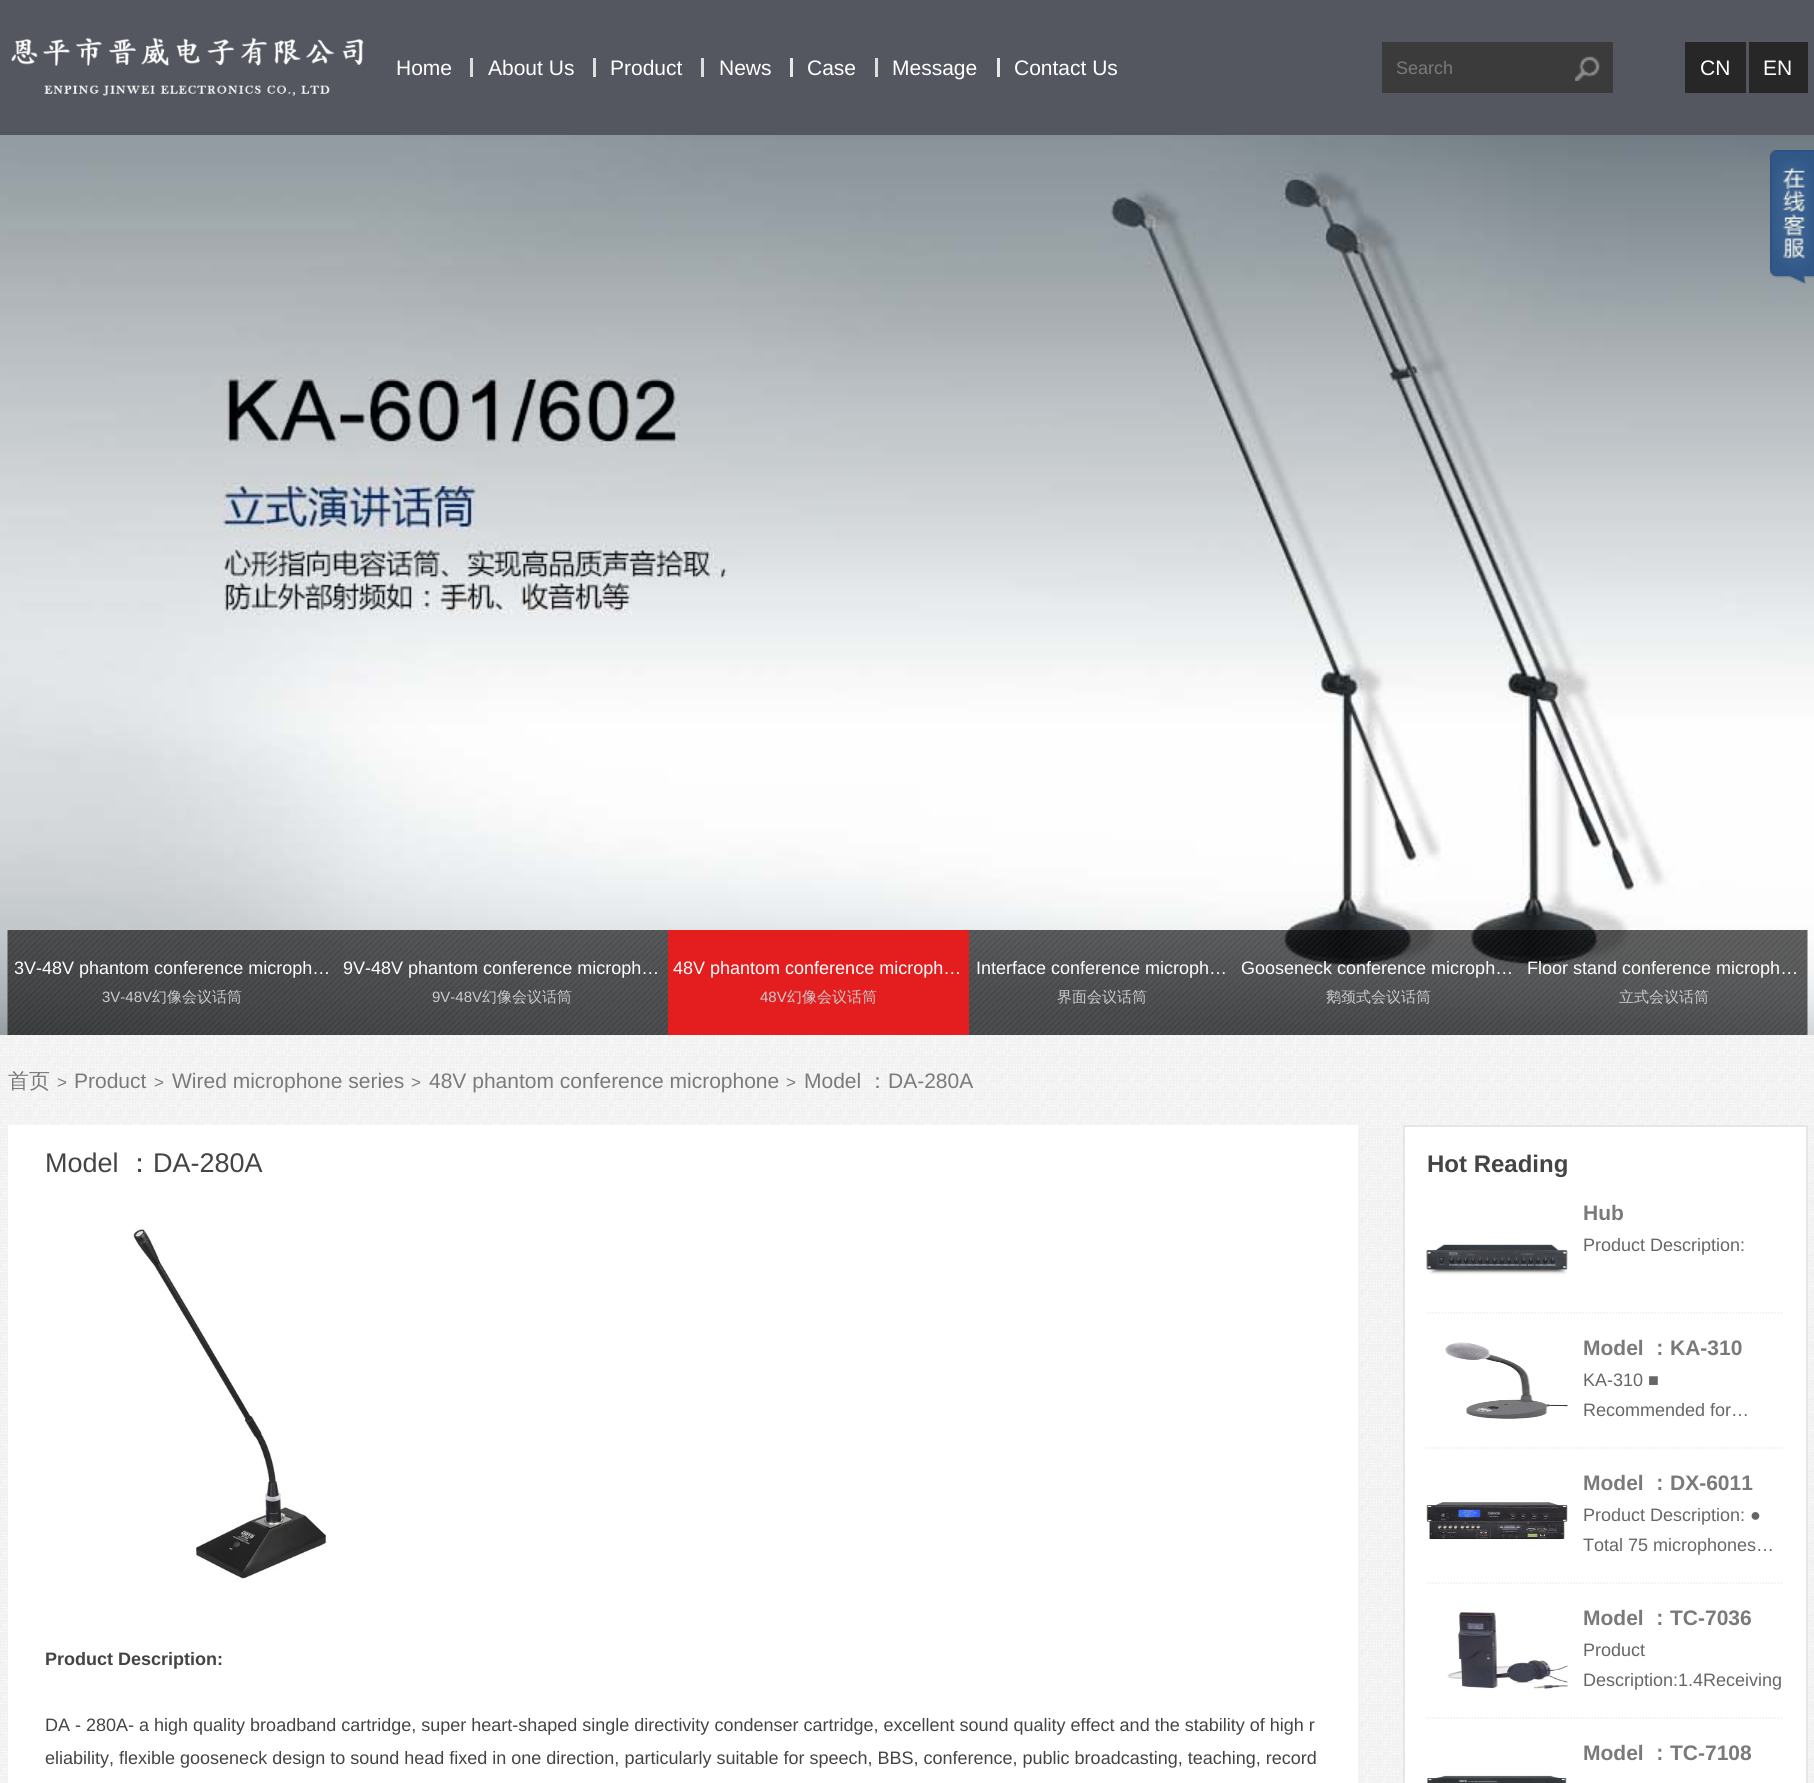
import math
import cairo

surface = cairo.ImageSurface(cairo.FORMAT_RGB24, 1814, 1783)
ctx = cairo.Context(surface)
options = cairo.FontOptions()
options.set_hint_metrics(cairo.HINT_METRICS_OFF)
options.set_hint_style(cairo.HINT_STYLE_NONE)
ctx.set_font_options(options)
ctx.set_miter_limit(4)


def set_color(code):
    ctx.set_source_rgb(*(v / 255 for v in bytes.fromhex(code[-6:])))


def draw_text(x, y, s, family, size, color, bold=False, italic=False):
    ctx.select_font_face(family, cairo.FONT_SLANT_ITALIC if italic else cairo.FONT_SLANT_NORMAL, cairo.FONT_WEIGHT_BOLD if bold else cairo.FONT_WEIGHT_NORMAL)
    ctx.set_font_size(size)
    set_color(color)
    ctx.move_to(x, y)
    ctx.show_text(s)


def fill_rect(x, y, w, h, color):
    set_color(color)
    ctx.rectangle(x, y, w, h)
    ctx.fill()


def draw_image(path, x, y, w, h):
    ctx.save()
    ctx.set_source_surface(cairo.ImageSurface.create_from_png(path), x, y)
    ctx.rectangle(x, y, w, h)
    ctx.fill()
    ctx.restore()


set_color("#ffffff")
ctx.paint()
fill_rect(0, 0, 1814, 135, "#555760")
draw_image("assets/img1.png", 11, 37, 353, 60)
draw_text(396, 75, "Home", "Liberation Sans", 21, "#ffffff")
fill_rect(470, 58, 3, 19, "#dedee0")
draw_text(488, 75, "About Us", "Liberation Sans", 21, "#ffffff")
fill_rect(593, 58, 3, 19, "#dedee0")
draw_text(610, 75, "Product", "Liberation Sans", 21, "#ffffff")
fill_rect(701, 58, 3, 19, "#dedee0")
draw_text(719, 75, "News", "Liberation Sans", 21, "#ffffff")
fill_rect(790, 58, 3, 19, "#e8e8e9")
draw_text(807, 75, "Case", "Liberation Sans", 21, "#ffffff")
fill_rect(875, 58, 3, 19, "#dedee0")
draw_text(892, 75, "Message", "Liberation Sans", 21, "#ffffff")
fill_rect(997, 58, 3, 19, "#e8e8e9")
draw_text(1014, 75, "Contact Us", "Liberation Sans", 21, "#ffffff")
fill_rect(1382, 42, 231, 51, "#3b3b3b")
draw_text(1396, 74, "Search", "Liberation Sans", 18, "#7a7a7a")
draw_image("assets/img2.png", 1575, 56, 25, 25)
fill_rect(1685, 42, 61, 51, "#272727")
draw_text(1700, 75, "CN", "Liberation Sans", 21, "#ffffff")
fill_rect(1749, 42, 59, 51, "#272727")
draw_text(1763, 75, "EN", "Liberation Sans", 21, "#ffffff")
draw_image("assets/img5.png", 0, 135, 1814, 900)
draw_image("assets/img3.png", 1770, 150, 44, 134)
draw_image("assets/img4.png", 0, 1035, 1814, 748)
draw_image("assets/img6.png", 7, 930, 1801, 105)
draw_text(14, 974, "3V-48V phantom conference microph…", "Liberation Sans", 18, "#ffffff")
draw_text(102, 1002, "3V-48V", "Liberation Sans", 15, "#cccccc")
draw_text(152, 1002, "幻像会议话筒", "WenQuanYi Zen Hei Medium", 15, "#cccccc")
draw_text(343, 974, "9V-48V phantom conference microph…", "Liberation Sans", 18, "#ffffff")
draw_text(432, 1002, "9V-48V", "Liberation Sans", 15, "#cccccc")
draw_text(482, 1002, "幻像会议话筒", "WenQuanYi Zen Hei Medium", 15, "#cccccc")
fill_rect(668, 930, 301, 105, "#e41e1f")
draw_text(673, 974, "48V phantom conference microph…", "Liberation Sans", 18, "#ffffff")
draw_text(760, 1002, "48V", "Liberation Sans", 15, "#cccccc")
draw_text(787, 1002, "幻像会议话筒", "WenQuanYi Zen Hei Medium", 15, "#cccccc")
draw_text(976, 974, "Interface conference microph…", "Liberation Sans", 18, "#ffffff")
draw_text(1057, 1002, "界面会议话筒", "WenQuanYi Zen Hei Medium", 15, "#cccccc")
draw_text(1241, 974, "Gooseneck conference microph…", "Liberation Sans", 18, "#ffffff")
draw_text(1326, 1002, "鹅颈式会议话筒", "WenQuanYi Zen Hei Medium", 15, "#cccccc")
draw_text(1527, 974, "Floor stand conference microph…", "Liberation Sans", 18, "#ffffff")
draw_text(1619, 1002, "立式会议话筒", "WenQuanYi Zen Hei Medium", 15, "#cccccc")
draw_text(8, 1088, "首页", "WenQuanYi Zen Hei Medium", 21, "#7a7a7a")
draw_text(57, 1088, ">", "Liberation Sans", 17, "#7a7a7a")
draw_text(74, 1088, "Product", "Liberation Sans", 21, "#7a7a7a")
draw_text(154, 1088, ">", "Liberation Sans", 17, "#7a7a7a")
draw_text(172, 1088, "Wired microphone series", "Liberation Sans", 21, "#7a7a7a")
draw_text(411, 1088, ">", "Liberation Sans", 17, "#7a7a7a")
draw_text(429, 1088, "48V phantom conference microphone", "Liberation Sans", 21, "#7a7a7a")
draw_text(786, 1088, ">", "Liberation Sans", 17, "#7a7a7a")
draw_text(804, 1088, "Model", "Liberation Sans", 21, "#7a7a7a")
draw_text(867, 1088, "：", "WenQuanYi Zen Hei Medium", 21, "#7a7a7a")
draw_text(888, 1088, "DA-280A", "Liberation Sans", 21, "#7a7a7a")
fill_rect(8, 1125, 1350, 658, "#ffffff")
draw_text(45, 1172, "Model", "Liberation Sans", 27, "#444444")
draw_text(126, 1172, "：", "WenQuanYi Zen Hei Medium", 27, "#444444")
draw_text(153, 1172, "DA-280A", "Liberation Sans", 27, "#444444")
draw_image("assets/img7.png", 133, 1229, 194, 350)
draw_text(45, 1665, "Product Description:", "Liberation Sans", 18, "#444444", bold=True)
draw_text(45, 1731, "DA - 280A- a high quality broadband cartridge, super heart-shaped single directivity condenser cartridge, excellent sound quality effect and the stability of high r", "Liberation Sans", 18, "#444444")
draw_text(45, 1764, "eliability, flexible gooseneck design to sound head fixed in one direction, particularly suitable for speech, BBS, conference, public broadcasting, teaching, record", "Liberation Sans", 18, "#444444")
set_color("#ffffff")
ctx.rectangle(1404, 1126, 403, 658)
ctx.fill_preserve()
set_color("#e6e6e6")
ctx.stroke()
draw_text(1427, 1172, "Hot Reading", "Liberation Sans", 24, "#444444", bold=True)
ctx.new_path()
ctx.move_to(1426.5, 1313)
ctx.line_to(1783.5, 1313)
set_color("#eeeeee")
ctx.set_line_width(1.5)
ctx.set_dash([1.5, 1.5])
ctx.stroke()
draw_text(1583, 1220, "Hub", "Liberation Sans", 21, "#7a7a7a", bold=True)
draw_image("assets/img8.png", 1426, 1244, 142, 31)
draw_text(1583, 1251, "Product Description:", "Liberation Sans", 18, "#666666")
ctx.new_path()
ctx.move_to(1426.5, 1448)
ctx.line_to(1783.5, 1448)
set_color("#eeeeee")
ctx.stroke()
draw_image("assets/img9.png", 1445, 1342, 123, 77)
draw_text(1583, 1355, "Model", "Liberation Sans", 21, "#7a7a7a", bold=True)
draw_text(1649, 1355, "：", "WenQuanYi Zen Hei", 21, "#7a7a7a", bold=True)
draw_text(1670, 1355, "KA-310", "Liberation Sans", 21, "#7a7a7a", bold=True)
draw_text(1583, 1386, "KA-310 ■", "Liberation Sans", 18, "#666666")
draw_text(1583, 1416, "Recommended for…", "Liberation Sans", 18, "#666666")
ctx.new_path()
ctx.move_to(1426.5, 1583)
ctx.line_to(1783.5, 1583)
set_color("#eeeeee")
ctx.stroke()
draw_text(1583, 1490, "Model", "Liberation Sans", 21, "#7a7a7a", bold=True)
draw_text(1649, 1490, "：", "WenQuanYi Zen Hei", 21, "#7a7a7a", bold=True)
draw_text(1670, 1490, "DX-6011", "Liberation Sans", 21, "#7a7a7a", bold=True)
draw_image("assets/img10.png", 1426, 1502, 142, 38)
draw_text(1583, 1521, "Product Description: ●", "Liberation Sans", 18, "#666666")
draw_text(1583, 1551, "Total 75 microphones…", "Liberation Sans", 18, "#666666")
ctx.new_path()
ctx.move_to(1426.5, 1718)
ctx.line_to(1783.5, 1718)
set_color("#eeeeee")
ctx.stroke()
draw_image("assets/img11.png", 1447, 1612, 121, 77)
draw_text(1583, 1625, "Model", "Liberation Sans", 21, "#7a7a7a", bold=True)
draw_text(1649, 1625, "：", "WenQuanYi Zen Hei", 21, "#7a7a7a", bold=True)
draw_text(1670, 1625, "TC-7036", "Liberation Sans", 21, "#7a7a7a", bold=True)
draw_text(1583, 1656, "Product", "Liberation Sans", 18, "#666666")
draw_text(1583, 1686, "Description:1.4Receiving", "Liberation Sans", 18, "#666666")
draw_text(1583, 1760, "Model", "Liberation Sans", 21, "#7a7a7a", bold=True)
draw_text(1649, 1760, "：", "WenQuanYi Zen Hei", 21, "#7a7a7a", bold=True)
draw_text(1670, 1760, "TC-7108", "Liberation Sans", 21, "#7a7a7a", bold=True)
draw_image("assets/img12.png", 1427, 1775, 140, 8)
surface.write_to_png("output.png")
